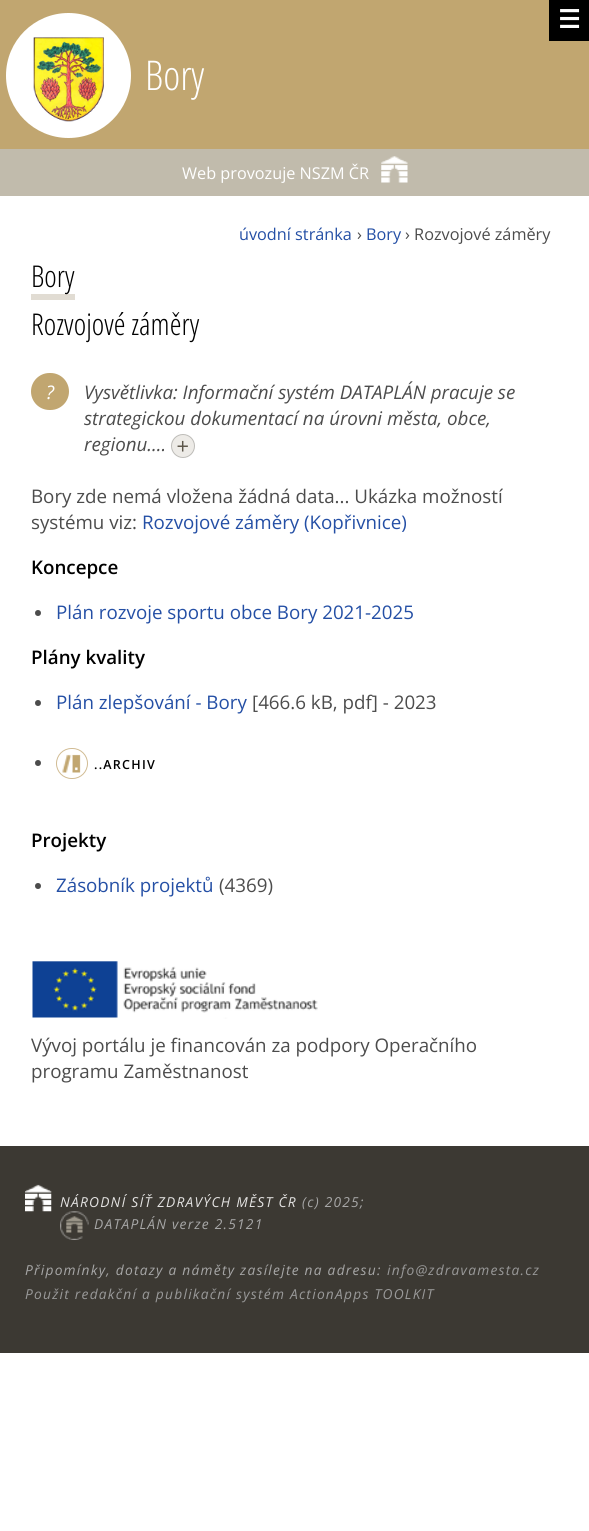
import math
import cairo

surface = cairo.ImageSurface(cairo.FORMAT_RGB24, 589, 1531)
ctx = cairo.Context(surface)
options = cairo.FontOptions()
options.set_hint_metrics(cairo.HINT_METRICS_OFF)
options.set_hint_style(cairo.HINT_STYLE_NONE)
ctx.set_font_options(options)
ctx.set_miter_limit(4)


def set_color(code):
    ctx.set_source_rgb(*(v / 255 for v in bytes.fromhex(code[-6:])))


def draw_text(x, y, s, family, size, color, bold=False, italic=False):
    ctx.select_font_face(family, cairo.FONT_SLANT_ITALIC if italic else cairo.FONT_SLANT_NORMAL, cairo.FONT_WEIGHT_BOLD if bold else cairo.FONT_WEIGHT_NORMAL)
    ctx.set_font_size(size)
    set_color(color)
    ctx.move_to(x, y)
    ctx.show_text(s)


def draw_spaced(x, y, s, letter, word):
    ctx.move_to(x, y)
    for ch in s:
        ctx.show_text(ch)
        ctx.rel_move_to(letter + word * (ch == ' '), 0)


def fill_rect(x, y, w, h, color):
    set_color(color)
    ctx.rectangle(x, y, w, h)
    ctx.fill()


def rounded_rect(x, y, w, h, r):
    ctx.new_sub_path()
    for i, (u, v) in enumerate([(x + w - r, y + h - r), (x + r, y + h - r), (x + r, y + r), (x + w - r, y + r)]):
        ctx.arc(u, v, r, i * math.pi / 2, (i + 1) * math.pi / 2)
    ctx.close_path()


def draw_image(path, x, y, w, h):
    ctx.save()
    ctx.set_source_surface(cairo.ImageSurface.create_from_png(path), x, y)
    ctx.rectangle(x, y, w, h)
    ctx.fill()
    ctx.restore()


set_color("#ffffff")
ctx.paint()
fill_rect(0, 0, 589, 149, "#c1a670")
fill_rect(549, 0, 40, 41, "#000000")
draw_text(558, 28, "☰", "DejaVu Sans", 25, "#ffffff", bold=True)
ctx.new_path()
ctx.arc(68.5, 75.5, 62.5, 0, 2 * math.pi)
ctx.fill()
draw_image("assets/img1.png", 33, 37, 71, 85)
draw_text(145, 90, "Bory", "Open Sans Condensed Light", 41, "#ffffff")
fill_rect(0, 149, 589, 47, "#c1bbac")
draw_text(182, 179, "Web provozuje NSZM ČR", "Open Sans", 16.25, "#ffffff")
draw_image("assets/img2.png", 381, 156, 27, 27)
draw_text(239, 240, "úvodní stránka", "Open Sans", 16.25, "#244fa5")
draw_text(357, 240, "›", "Open Sans", 16.25, "#4c4c4c")
draw_text(366, 240, "Bory", "Open Sans", 16.25, "#244fa5")
draw_text(405, 240, "› Rozvojové záměry", "Open Sans", 16.25, "#4c4c4c")
fill_rect(31, 294, 44, 6, "#e1dcd3")
draw_text(31, 287, "Bory", "Open Sans Condensed Light", 30, "#000000")
draw_text(31, 335, "Rozvojové záměry", "Open Sans Condensed Light", 30, "#000000")
set_color("#c1a670")
rounded_rect(31, 373, 38, 37, 18.5)
ctx.fill()
draw_text(46, 399, "?", "Open Sans", 18.75, "#ffffff", italic=True)
draw_text(84, 399, "Vysvětlivka: Informační systém DATAPLÁN pracuje se", "Open Sans", 18.75, "#4c4c4c", italic=True)
draw_text(84, 425, "strategickou dokumentací na úrovni města, obce,", "Open Sans", 18.75, "#4c4c4c", italic=True)
draw_text(84, 451, "regionu....", "Open Sans", 18.75, "#4c4c4c", italic=True)
set_color("#edebe7")
ctx.new_path()
ctx.arc(183, 446, 12, 0, 2 * math.pi)
ctx.fill()
ctx.arc(183, 446, 11.5, 0, 2 * math.pi)
ctx.set_source_rgba(0, 0, 0, 0.2)
ctx.set_line_width(1)
ctx.stroke()
draw_text(176, 454, "+", "Open Sans", 22, "#5b5549", italic=True)
draw_text(31, 503, "Bory zde nemá vložena žádná data... Ukázka možností", "Open Sans", 18.75, "#4c4c4c")
draw_text(31, 529, "systému viz:", "Open Sans", 18.75, "#4c4c4c")
draw_text(142, 529, "Rozvojové záměry (Kopřivnice)", "Open Sans", 18.75, "#244fa5")
draw_text(31, 574, "Koncepce", "Open Sans SemiBold", 18.75, "#000000")
set_color("#4c4c4c")
ctx.new_path()
ctx.arc(38, 613, 3, 0, 2 * math.pi)
ctx.fill()
draw_text(56, 619, "Plán rozvoje sportu obce Bory 2021-2025", "Open Sans", 18.75, "#244fa5")
draw_text(31, 664, "Plány kvality", "Open Sans SemiBold", 18.75, "#000000")
set_color("#4c4c4c")
ctx.new_path()
ctx.arc(38, 703, 3, 0, 2 * math.pi)
ctx.fill()
draw_text(56, 709, "Plán zlepšování - Bory", "Open Sans", 18.75, "#244fa5")
draw_text(252, 709, "[466.6 kB, pdf] - 2023", "Open Sans", 18.75, "#4c4c4c")
ctx.new_path()
ctx.arc(38, 763, 3, 0, 2 * math.pi)
ctx.fill()
draw_image("assets/img3.png", 62, 754, 19, 19)
rounded_rect(56.5, 748.5, 31, 30, 15)
set_color("#d1bc94")
ctx.stroke()
ctx.select_font_face("Open Sans SemiBold")
ctx.set_font_size(12.5)
set_color("#000000")
draw_spaced(94, 769, "..ARCHIV", 1.25, 0)
draw_text(31, 847, "Projekty", "Open Sans SemiBold", 18.75, "#000000")
set_color("#4c4c4c")
ctx.new_path()
ctx.arc(38, 886, 3, 0, 2 * math.pi)
ctx.fill()
draw_text(56, 892, "Zásobník projektů", "Open Sans", 18.75, "#244fa5")
draw_text(219, 892, "(4369)", "Open Sans", 18.75, "#4c4c4c")
draw_image("assets/img4.png", 32, 961, 286, 58)
draw_text(31, 1052, "Vývoj portálu je financován za podpory Operačního", "Open Sans", 18.75, "#4c4c4c")
draw_text(31, 1078, "programu Zaměstnanost", "Open Sans", 18.75, "#4c4c4c")
fill_rect(0, 1146, 589, 207, "#3c3933")
draw_image("assets/img5.png", 25, 1184, 27, 28)
ctx.select_font_face("Open Sans", cairo.FONT_SLANT_ITALIC)
ctx.set_font_size(13.75)
set_color("#e4e3e2")
draw_spaced(60, 1207, "NÁRODNÍ SÍŤ ZDRAVÝCH MĚST ČR", 1.25, 0)
set_color("#a7a7a7")
draw_spaced(302, 1207, "(c) 2025;", 1.25, 0)
draw_image("assets/img6.png", 60, 1211, 29, 29)
draw_spaced(94, 1229, "DATAPLÁN verze 2.5121", 1.25, 0)
draw_spaced(25, 1275, "Připomínky, dotazy a náměty zasílejte na adresu:", 1.25, 0)
set_color("#999999")
draw_spaced(387, 1275, "info@zdravamesta.cz", 1.25, 0)
draw_spaced(25, 1299, "Použit redakční a publikační systém ActionApps TOOLKIT", 1.25, 0)
surface.write_to_png("output.png")
